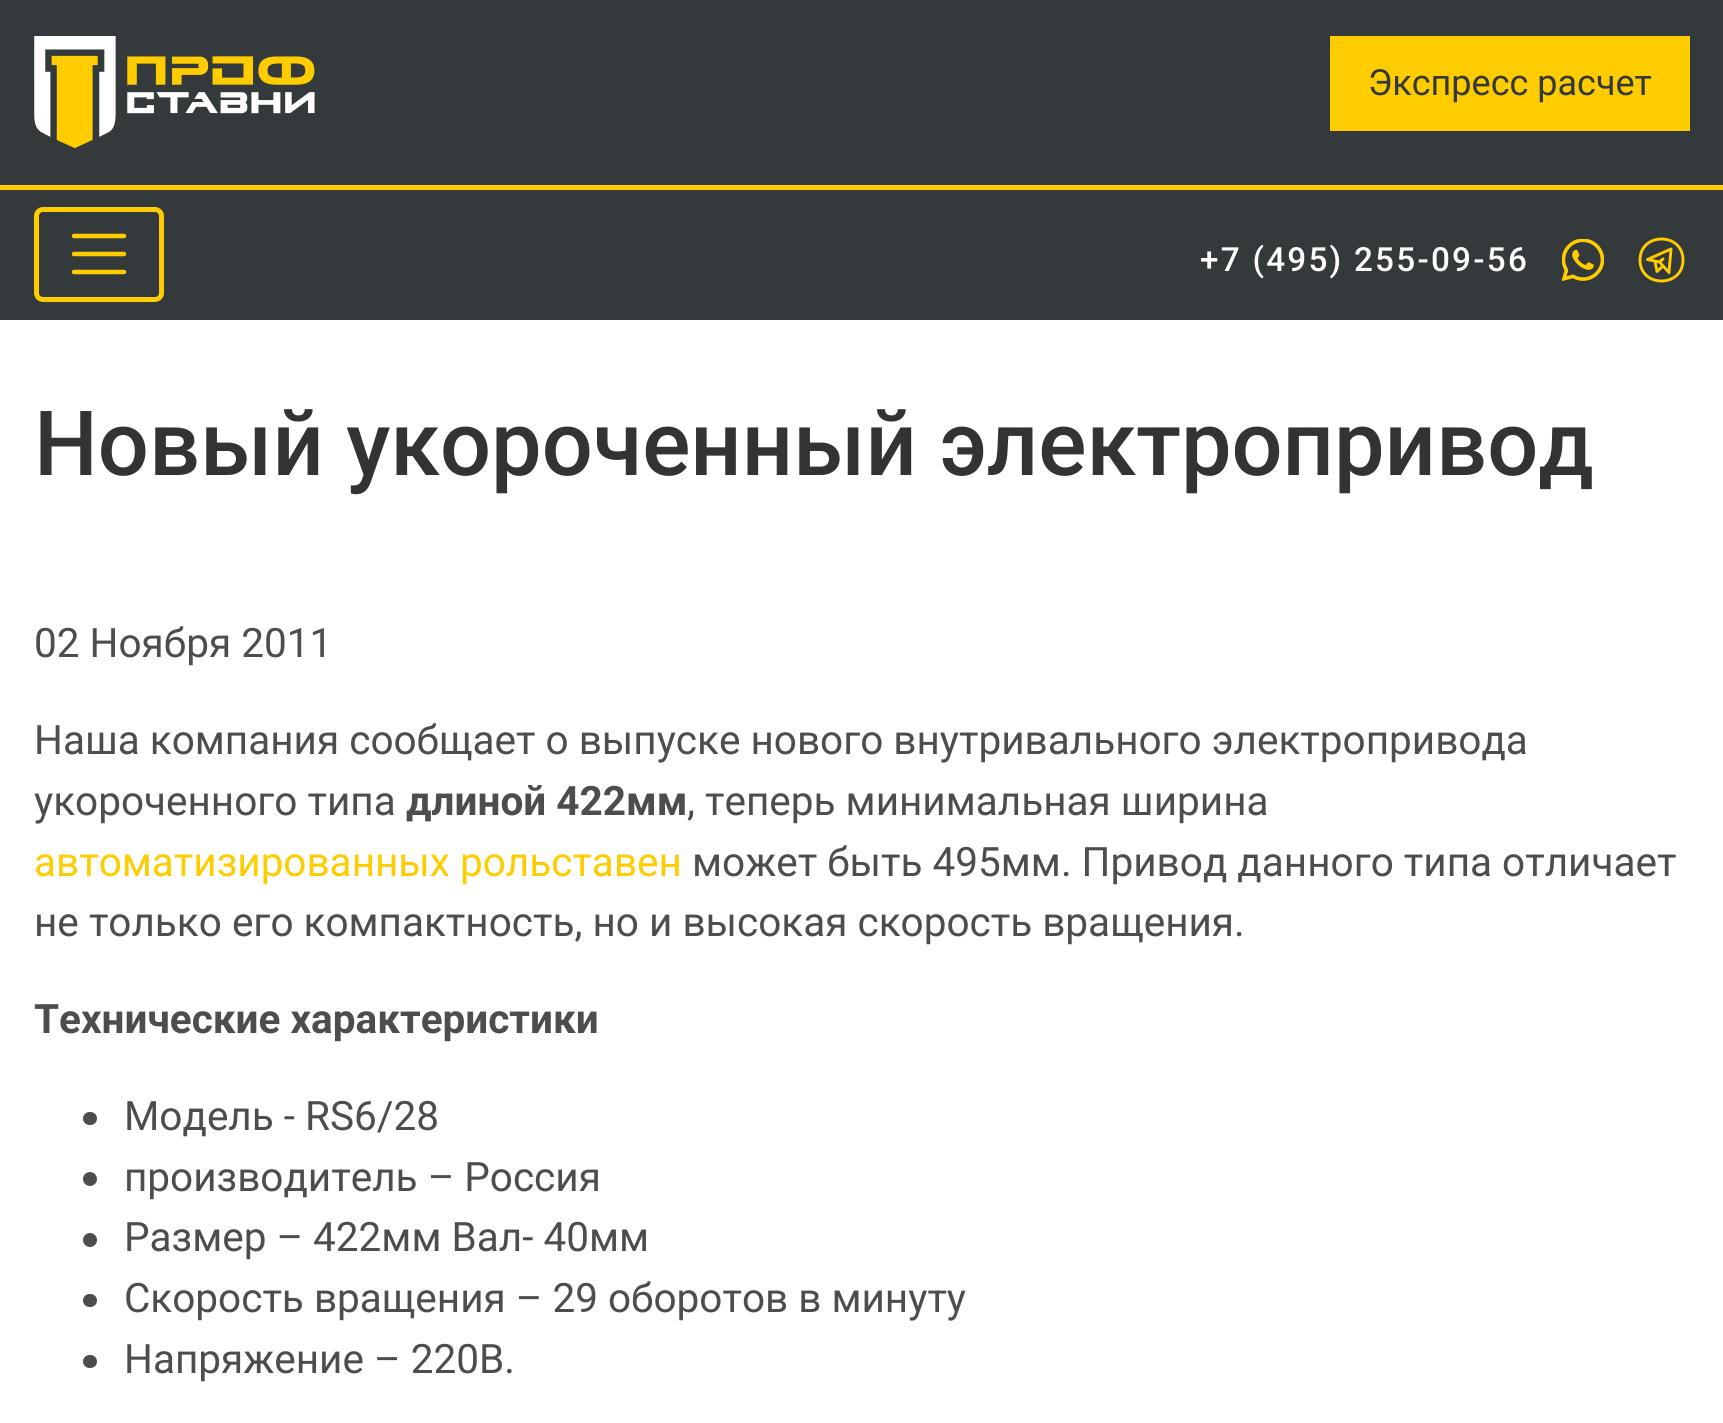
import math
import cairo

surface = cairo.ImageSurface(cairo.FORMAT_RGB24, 1723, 1423)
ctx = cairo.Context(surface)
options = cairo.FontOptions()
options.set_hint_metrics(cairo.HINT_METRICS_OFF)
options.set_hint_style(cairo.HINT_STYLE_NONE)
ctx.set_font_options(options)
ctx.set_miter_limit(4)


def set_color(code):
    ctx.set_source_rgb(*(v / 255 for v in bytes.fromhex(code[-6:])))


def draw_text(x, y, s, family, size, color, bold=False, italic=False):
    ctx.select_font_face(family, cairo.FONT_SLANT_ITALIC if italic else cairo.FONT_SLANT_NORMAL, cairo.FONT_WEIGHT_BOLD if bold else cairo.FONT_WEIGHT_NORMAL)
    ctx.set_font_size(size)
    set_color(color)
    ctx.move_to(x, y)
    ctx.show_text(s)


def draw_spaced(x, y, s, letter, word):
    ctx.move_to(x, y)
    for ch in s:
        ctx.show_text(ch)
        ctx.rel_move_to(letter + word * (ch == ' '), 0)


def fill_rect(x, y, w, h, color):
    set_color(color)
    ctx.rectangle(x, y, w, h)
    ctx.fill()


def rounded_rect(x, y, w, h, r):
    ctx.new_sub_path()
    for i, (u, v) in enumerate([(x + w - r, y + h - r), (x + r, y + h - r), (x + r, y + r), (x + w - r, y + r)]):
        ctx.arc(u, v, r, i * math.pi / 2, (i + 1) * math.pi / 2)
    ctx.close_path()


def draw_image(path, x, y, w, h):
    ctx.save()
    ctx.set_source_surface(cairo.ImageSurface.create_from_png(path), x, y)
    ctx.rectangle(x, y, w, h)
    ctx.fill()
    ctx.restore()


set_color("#ffffff")
ctx.paint()
fill_rect(0, 0, 1723, 320, "#34393b")
fill_rect(0, 185, 1723, 5, "#ffcc00")
draw_image("assets/img1.png", 34, 36, 281, 113)
fill_rect(1330, 36, 360, 95, "#ffcc00")
draw_text(1368, 95, "Экспресс расчет", "Roboto", 36, "#34393b")
rounded_rect(36.5, 209.5, 125, 90, 6.5)
set_color("#ffcc00")
ctx.set_line_width(5)
ctx.stroke()
ctx.new_path()
ctx.move_to(74, 236)
ctx.line_to(124, 236)
ctx.move_to(74, 254)
ctx.line_to(124, 254)
ctx.move_to(74, 272)
ctx.line_to(124, 272)
ctx.set_line_width(4.5)
ctx.set_line_cap(cairo.LINE_CAP_ROUND)
ctx.stroke()
ctx.select_font_face("Roboto Medium")
ctx.set_font_size(33.25)
set_color("#ffffff")
draw_spaced(1200, 271, "+7 (495) 255-09-56", 2.25, 0)
draw_image("assets/img2.png", 1562, 239, 42, 42)
ctx.new_path()
ctx.move_to(1640, 260)
ctx.curve_to(1640, 288, 1683, 288, 1683, 260)
ctx.curve_to(1683, 232, 1640, 232, 1640, 260)
ctx.close_path()
ctx.move_to(1671, 249)
ctx.line_to(1669, 272.5)
ctx.line_to(1659.5, 262)
ctx.line_to(1647.5, 259.5)
ctx.close_path()
ctx.move_to(1655, 261.5)
ctx.line_to(1657, 271.5)
ctx.line_to(1663, 266)
ctx.move_to(1659.5, 262)
ctx.line_to(1663, 259)
set_color("#ffcc00")
ctx.set_line_width(2.9)
ctx.set_line_join(cairo.LINE_JOIN_ROUND)
ctx.stroke()
draw_text(34, 475, "Новый укороченный электропривод", "Roboto Medium", 90, "#333333")
draw_text(34, 657, "02 Ноября 2011", "Roboto", 40.5, "#4d4d4d")
draw_text(34, 754, "Наша компания сообщает о выпуске нового внутривального электропривода", "Roboto", 40.5, "#4d4d4d")
draw_text(34, 815, "укороченного типа", "Roboto", 40.5, "#4d4d4d")
draw_text(406, 815, "длиной 422мм", "Roboto", 40.5, "#4d4d4d", bold=True)
draw_text(687, 815, ", теперь минимальная ширина", "Roboto", 40.5, "#4d4d4d")
draw_text(34, 876, "автоматизированных рольставен", "Roboto", 40.5, "#ffcc00")
draw_text(692, 876, "может быть 495мм. Привод данного типа отличает", "Roboto", 40.5, "#4d4d4d")
draw_text(34, 936, "не только его компактность, но и высокая скорость вращения.", "Roboto", 40.5, "#4d4d4d")
draw_text(34, 1033, "Технические характеристики", "Roboto", 40.5, "#4d4d4d", bold=True)
rounded_rect(83, 1112, 14, 13, 6.5)
ctx.fill()
draw_text(124, 1130, "Модель - RS6/28", "Roboto", 40.5, "#4d4d4d")
ctx.new_path()
ctx.arc(90, 1179, 7, 0, 2 * math.pi)
ctx.fill()
draw_text(124, 1191, "производитель – Россия", "Roboto", 40.5, "#4d4d4d")
ctx.new_path()
ctx.arc(90, 1240, 7, 0, 2 * math.pi)
ctx.fill()
draw_text(124, 1251, "Размер – 422мм Вал- 40мм", "Roboto", 40.5, "#4d4d4d")
rounded_rect(83, 1294, 14, 13, 6.5)
ctx.fill()
draw_text(124, 1312, "Скорость вращения – 29 оборотов в минуту", "Roboto", 40.5, "#4d4d4d")
rounded_rect(83, 1355, 14, 13, 6.5)
ctx.fill()
draw_text(124, 1373, "Напряжение – 220В.", "Roboto", 40.5, "#4d4d4d")
surface.write_to_png("output.png")
